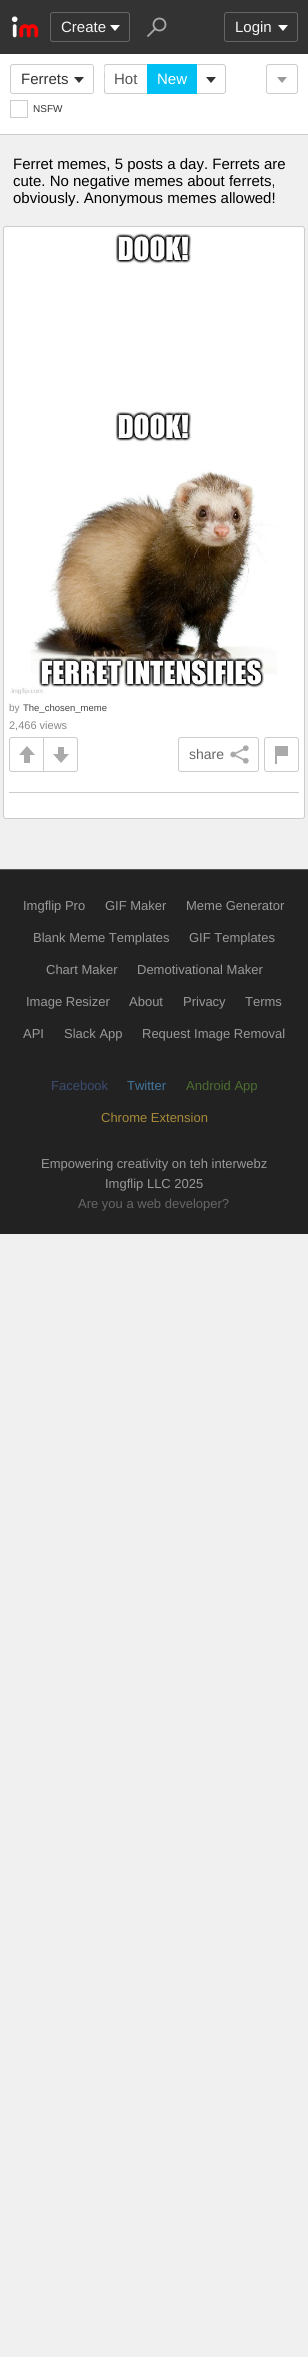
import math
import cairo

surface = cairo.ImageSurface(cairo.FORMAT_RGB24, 308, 2357)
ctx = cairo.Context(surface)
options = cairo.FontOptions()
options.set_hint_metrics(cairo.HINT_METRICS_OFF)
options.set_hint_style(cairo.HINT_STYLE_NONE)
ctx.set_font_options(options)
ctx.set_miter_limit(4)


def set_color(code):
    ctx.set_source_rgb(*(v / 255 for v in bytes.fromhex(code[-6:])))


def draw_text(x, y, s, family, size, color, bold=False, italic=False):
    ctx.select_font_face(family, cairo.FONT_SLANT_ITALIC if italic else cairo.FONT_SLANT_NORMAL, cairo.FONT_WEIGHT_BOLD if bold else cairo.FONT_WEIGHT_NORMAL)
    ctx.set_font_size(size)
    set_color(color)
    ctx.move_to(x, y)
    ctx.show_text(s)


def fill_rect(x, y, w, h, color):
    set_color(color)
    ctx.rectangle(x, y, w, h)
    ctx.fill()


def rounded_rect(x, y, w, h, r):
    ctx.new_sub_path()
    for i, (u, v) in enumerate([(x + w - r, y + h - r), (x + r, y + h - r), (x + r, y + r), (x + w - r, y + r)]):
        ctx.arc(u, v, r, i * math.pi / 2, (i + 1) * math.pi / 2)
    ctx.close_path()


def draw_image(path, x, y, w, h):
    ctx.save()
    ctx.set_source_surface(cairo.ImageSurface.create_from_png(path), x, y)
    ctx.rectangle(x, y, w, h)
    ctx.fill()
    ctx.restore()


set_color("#f0f0f0")
ctx.paint()
fill_rect(0, 0, 308, 54, "#333333")
draw_image("assets/img1.png", 11, 16, 28, 22)
rounded_rect(50.5, 12.5, 79, 29, 2.5)
set_color("#666666")
ctx.set_line_width(1)
ctx.stroke()
draw_text(61, 32, "Create", "Liberation Sans", 15, "#f5f5f5")
set_color("#ffffff")
ctx.new_path()
ctx.move_to(110, 25)
ctx.line_to(120, 25)
ctx.line_to(115, 31)
ctx.close_path()
ctx.fill()
ctx.new_path()
ctx.move_to(148, 36)
ctx.line_to(155.5, 28.5)
set_color("#aaaaaa")
ctx.set_line_width(1.8)
ctx.set_line_cap(cairo.LINE_CAP_ROUND)
ctx.stroke()
ctx.arc(159.5, 24.5, 6, 0, 2 * math.pi)
ctx.set_line_cap(cairo.LINE_CAP_BUTT)
ctx.stroke()
rounded_rect(224.5, 12.5, 73, 29, 2.5)
set_color("#666666")
ctx.set_line_width(1)
ctx.stroke()
draw_text(235, 32, "Login", "Liberation Sans", 15, "#f5f5f5")
set_color("#ffffff")
ctx.new_path()
ctx.move_to(278, 25)
ctx.line_to(288, 25)
ctx.line_to(283, 31)
ctx.close_path()
ctx.fill()
fill_rect(0, 54, 308, 80, "#ffffff")
fill_rect(0, 134, 308, 1, "#cccccc")
rounded_rect(10.5, 64.5, 83, 29, 2.5)
ctx.stroke()
draw_text(21, 84, "Ferrets", "Liberation Sans", 15, "#333333")
gradient = cairo.LinearGradient(67, 79, 93, 79)
gradient.add_color_stop_rgba(0, 1, 1, 1, 0)
gradient.add_color_stop_rgba(0.3, 1, 1, 1, 1)
gradient.add_color_stop_rgba(1, 1, 1, 1, 1)
ctx.set_source(gradient)
ctx.new_path()
ctx.move_to(67, 65)
ctx.line_to(91, 65)
ctx.curve_to(92, 65, 93, 66, 93, 67)
ctx.line_to(93, 91)
ctx.curve_to(93, 92, 92, 93, 91, 93)
ctx.line_to(67, 93)
ctx.close_path()
ctx.fill()
set_color("#333333")
ctx.new_path()
ctx.move_to(74, 77)
ctx.line_to(84, 77)
ctx.line_to(79, 83)
ctx.close_path()
ctx.fill()
set_color("#cccccc")
ctx.set_fill_rule(cairo.FILL_RULE_EVEN_ODD)
ctx.new_path()
ctx.move_to(107, 64)
ctx.line_to(147, 64)
ctx.line_to(147, 94)
ctx.line_to(107, 94)
ctx.curve_to(105, 94, 104, 93, 104, 91)
ctx.line_to(104, 67)
ctx.curve_to(104, 65, 105, 64, 107, 64)
ctx.close_path()
ctx.move_to(107, 65)
ctx.line_to(147, 65)
ctx.line_to(147, 93)
ctx.line_to(106, 93)
ctx.curve_to(104, 91, 105, 78, 105, 75)
ctx.curve_to(105, 73, 103, 65, 107, 65)
ctx.close_path()
ctx.fill()
draw_text(114, 84, "Hot", "Liberation Sans", 15, "#555555")
fill_rect(147, 64, 50, 30, "#00bff3")
draw_text(157, 84, "New", "Liberation Sans", 15, "#ffffff")
set_color("#cccccc")
ctx.new_path()
ctx.move_to(197, 64)
ctx.line_to(223, 64)
ctx.curve_to(224.5, 64, 226, 65.5, 226, 67)
ctx.line_to(226, 91)
ctx.curve_to(226, 92.5, 224.5, 94, 223, 94)
ctx.line_to(197, 94)
ctx.close_path()
ctx.move_to(197, 65)
ctx.line_to(223, 65)
ctx.curve_to(224, 65, 225, 66, 225, 67)
ctx.line_to(225, 91)
ctx.curve_to(225, 92, 224, 93, 223, 93)
ctx.line_to(197, 93)
ctx.close_path()
ctx.fill()
set_color("#333333")
ctx.set_fill_rule(cairo.FILL_RULE_WINDING)
ctx.new_path()
ctx.move_to(206, 77)
ctx.line_to(216, 77)
ctx.line_to(211, 83)
ctx.close_path()
ctx.fill()
rounded_rect(266.5, 64.5, 31, 29, 2.5)
set_color("#cccccc")
ctx.stroke()
set_color("#999999")
ctx.new_path()
ctx.move_to(277, 77)
ctx.line_to(287, 77)
ctx.line_to(282, 83)
ctx.close_path()
ctx.fill()
ctx.rectangle(10.5, 100.5, 17, 17)
set_color("#cccccc")
ctx.stroke()
draw_text(33, 112, "NSFW", "Liberation Sans", 10, "#333333")
draw_text(13, 169, "Ferret memes, 5 posts a day. Ferrets are", "Liberation Sans", 15, "#000000")
draw_text(13, 186, "cute. No negative memes about ferrets,", "Liberation Sans", 15, "#000000")
draw_text(13, 203, "obviously. Anonymous memes allowed!", "Liberation Sans", 15, "#000000")
set_color("#ffffff")
rounded_rect(3.5, 226.5, 301, 592, 2.5)
ctx.fill_preserve()
set_color("#cccccc")
ctx.stroke()
fill_rect(9, 792, 290, 1, "#cccccc")
draw_image("assets/img2.png", 11, 233, 266, 462)
draw_text(9, 711, "by", "Liberation Sans", 10, "#888888")
draw_text(23, 711, "The_chosen_meme", "Liberation Sans", 9.5, "#444444")
draw_text(9, 729, "2,466 views", "Liberation Sans", 11, "#888888")
ctx.new_path()
ctx.move_to(12, 737.5)
ctx.line_to(43.5, 737.5)
ctx.line_to(43.5, 771.5)
ctx.line_to(12, 771.5)
ctx.curve_to(10.5, 771.5, 9.5, 770.5, 9.5, 769)
ctx.line_to(9.5, 740)
ctx.curve_to(9.5, 738.5, 10.5, 737.5, 12, 737.5)
ctx.close_path()
set_color("#cccccc")
ctx.stroke()
fill_rect(24, 753, 6, 10, "#aaaaaa")
ctx.new_path()
ctx.move_to(35, 755)
ctx.line_to(19, 755)
ctx.line_to(27, 746)
ctx.close_path()
ctx.fill()
set_color("#ffffff")
ctx.new_path()
ctx.move_to(43.5, 737.5)
ctx.line_to(75, 737.5)
ctx.curve_to(76.5, 737.5, 77.5, 738.5, 77.5, 740)
ctx.line_to(77.5, 769)
ctx.curve_to(77.5, 770.5, 76.5, 771.5, 75, 771.5)
ctx.line_to(43.5, 771.5)
ctx.close_path()
ctx.fill_preserve()
set_color("#cccccc")
ctx.stroke()
fill_rect(58, 747, 6, 10, "#aaaaaa")
ctx.new_path()
ctx.move_to(53, 754)
ctx.line_to(69, 754)
ctx.line_to(61, 763)
ctx.close_path()
ctx.fill()
rounded_rect(178.5, 737.5, 80, 34, 2.5)
set_color("#cccccc")
ctx.stroke()
draw_text(189, 759, "share", "Liberation Sans", 14, "#666666")
draw_image("assets/img3.png", 230, 745, 19, 19)
rounded_rect(264.5, 737.5, 34, 34, 2.5)
set_color("#cccccc")
ctx.stroke()
fill_rect(275, 746, 13, 10, "#aaaaaa")
fill_rect(275, 756, 2, 8, "#aaaaaa")
fill_rect(0, 870, 308, 364, "#222222")
fill_rect(0, 869, 308, 1, "#555555")
draw_text(23, 910, "Imgflip Pro", "Liberation Sans", 13, "#999999")
draw_text(105, 910, "GIF Maker", "Liberation Sans", 13, "#999999")
draw_text(186, 910, "Meme Generator", "Liberation Sans", 13, "#999999")
draw_text(33, 942, "Blank Meme Templates", "Liberation Sans", 13, "#999999")
draw_text(189, 942, "GIF Templates", "Liberation Sans", 13, "#999999")
draw_text(46, 974, "Chart Maker", "Liberation Sans", 13, "#999999")
draw_text(137, 974, "Demotivational Maker", "Liberation Sans", 13, "#999999")
draw_text(26, 1006, "Image Resizer", "Liberation Sans", 13, "#999999")
draw_text(129, 1006, "About", "Liberation Sans", 13, "#999999")
draw_text(183, 1006, "Privacy", "Liberation Sans", 13, "#999999")
draw_text(245, 1006, "Terms", "Liberation Sans", 13, "#999999")
draw_text(23, 1038, "API", "Liberation Sans", 13, "#999999")
draw_text(64, 1038, "Slack App", "Liberation Sans", 13, "#999999")
draw_text(142, 1038, "Request Image Removal", "Liberation Sans", 13, "#999999")
draw_text(51, 1090, "Facebook", "Liberation Sans", 13, "#3b4b70")
draw_text(127, 1090, "Twitter", "Liberation Sans", 13, "#41759c")
draw_text(186, 1090, "Android App", "Liberation Sans", 13, "#4c6d2f")
draw_text(101, 1122, "Chrome Extension", "Liberation Sans", 13, "#a78938")
draw_text(41, 1168, "Empowering creativity on teh interwebz", "Liberation Sans", 13, "#999999")
draw_text(105, 1188, "Imgflip LLC 2025", "Liberation Sans", 13, "#999999")
draw_text(78, 1208, "Are you a web developer?", "Liberation Sans", 13, "#666666")
surface.write_to_png("output.png")
